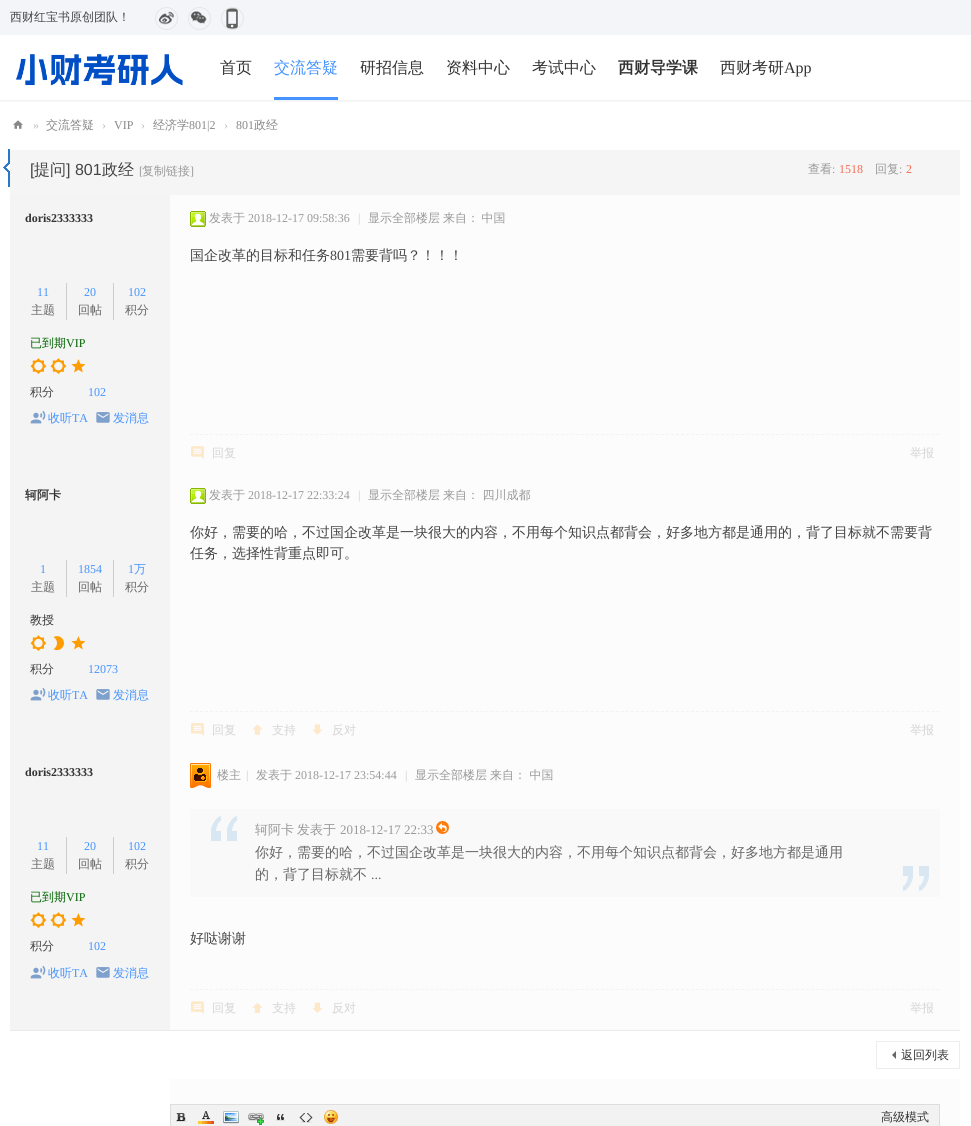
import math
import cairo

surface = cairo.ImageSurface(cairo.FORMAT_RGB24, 971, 1126)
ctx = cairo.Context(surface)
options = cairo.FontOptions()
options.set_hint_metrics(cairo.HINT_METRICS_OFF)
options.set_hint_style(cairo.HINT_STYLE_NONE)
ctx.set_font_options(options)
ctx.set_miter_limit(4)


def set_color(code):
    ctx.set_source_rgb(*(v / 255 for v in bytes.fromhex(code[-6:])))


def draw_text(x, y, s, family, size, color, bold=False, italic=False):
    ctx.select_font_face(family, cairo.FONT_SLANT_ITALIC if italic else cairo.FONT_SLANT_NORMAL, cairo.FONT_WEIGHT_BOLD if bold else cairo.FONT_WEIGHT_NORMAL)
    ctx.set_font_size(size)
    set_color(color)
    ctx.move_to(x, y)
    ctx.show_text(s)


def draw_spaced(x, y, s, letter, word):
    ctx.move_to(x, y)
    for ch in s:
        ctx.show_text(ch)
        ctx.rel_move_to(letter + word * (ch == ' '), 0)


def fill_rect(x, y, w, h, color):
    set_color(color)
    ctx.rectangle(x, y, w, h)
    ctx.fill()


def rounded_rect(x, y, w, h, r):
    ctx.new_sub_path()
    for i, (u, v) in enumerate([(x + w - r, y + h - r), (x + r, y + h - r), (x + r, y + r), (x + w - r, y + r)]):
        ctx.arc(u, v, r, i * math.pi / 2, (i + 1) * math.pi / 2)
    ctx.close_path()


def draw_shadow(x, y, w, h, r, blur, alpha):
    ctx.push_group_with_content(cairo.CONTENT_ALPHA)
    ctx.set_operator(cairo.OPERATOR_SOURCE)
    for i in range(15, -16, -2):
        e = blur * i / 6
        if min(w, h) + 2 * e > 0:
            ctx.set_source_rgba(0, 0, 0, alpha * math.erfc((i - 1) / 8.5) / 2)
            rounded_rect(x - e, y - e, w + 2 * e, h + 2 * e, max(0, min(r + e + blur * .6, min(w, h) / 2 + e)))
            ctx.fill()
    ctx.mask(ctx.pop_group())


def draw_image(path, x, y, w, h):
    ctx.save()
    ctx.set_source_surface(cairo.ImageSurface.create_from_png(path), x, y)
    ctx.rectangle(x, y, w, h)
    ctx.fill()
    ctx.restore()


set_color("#ffffff")
ctx.paint()
fill_rect(0, 0, 971, 35, "#f4f5f9")
draw_text(10, 21, "西财红宝书原创团队！", "WenQuanYi Zen Hei Medium", 12, "#444444")
draw_image("assets/img1.png", 159, 11, 15, 14)
ctx.arc(166.5, 18.5, 11, 0, 2 * math.pi)
set_color("#e6e6e6")
ctx.set_line_width(1)
ctx.stroke()
draw_image("assets/img2.png", 190, 11, 17, 13)
ctx.arc(199.5, 18.5, 11, 0, 2 * math.pi)
ctx.stroke()
draw_image("assets/img3.png", 226, 8, 12, 21)
ctx.arc(232.5, 18.5, 11, 0, 2 * math.pi)
ctx.stroke()
ctx.save()
ctx.rectangle(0, 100, 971, 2)
ctx.clip()
set_color("#000000")
draw_shadow(0, 36, 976, 65, 0, 1.5, 0.08)
ctx.restore()
draw_image("assets/img4.png", 16, 54, 167, 32)
draw_text(220, 73, "首页", "WenQuanYi Zen Hei Medium", 16, "#333333")
draw_text(274, 73, "交流答疑", "WenQuanYi Zen Hei Medium", 16, "#4593ff")
fill_rect(274, 97, 64, 3, "#4593ff")
draw_text(360, 73, "研招信息", "WenQuanYi Zen Hei Medium", 16, "#333333")
draw_text(446, 73, "资料中心", "WenQuanYi Zen Hei Medium", 16, "#333333")
draw_text(532, 73, "考试中心", "WenQuanYi Zen Hei Medium", 16, "#333333")
draw_text(618, 73, "西财导学课", "WenQuanYi Zen Hei", 16, "#333333", bold=True)
draw_text(720, 73, "西财考研", "WenQuanYi Zen Hei Medium", 16, "#333333")
draw_text(784, 73, "App", "Liberation Serif", 16, "#333333")
draw_image("assets/img5.png", 13, 120, 10, 9)
draw_text(33, 129, "»", "Liberation Serif", 12, "#bdbdbd")
draw_text(46, 129, "交流答疑", "WenQuanYi Zen Hei Medium", 12, "#888888")
draw_text(102, 129, "›", "Liberation Serif", 12, "#bdbdbd")
draw_text(114, 129, "VIP", "Liberation Serif", 12, "#888888")
draw_text(141, 129, "›", "Liberation Serif", 12, "#bdbdbd")
draw_text(153, 129, "经济学", "WenQuanYi Zen Hei Medium", 12, "#888888")
draw_text(189, 129, "801|2", "Liberation Serif", 12, "#888888")
draw_text(224, 129, "›", "Liberation Serif", 12, "#bdbdbd")
draw_text(236, 129, "801", "Liberation Serif", 12, "#888888")
draw_text(254, 129, "政经", "WenQuanYi Zen Hei Medium", 12, "#888888")
fill_rect(10, 150, 950, 45, "#f5f5f5")
draw_image("assets/img6.png", 3, 149, 7, 38)
draw_text(30, 175, "[", "Liberation Sans", 16, "#444444")
draw_text(34, 175, "提问", "WenQuanYi Zen Hei Medium", 16, "#444444")
draw_text(66, 175, "] 801", "Liberation Sans", 16, "#444444")
draw_text(102, 175, "政经", "WenQuanYi Zen Hei Medium", 16, "#444444")
draw_text(139, 175, "[", "Liberation Serif", 12, "#999999")
draw_text(142, 175, "复制链接", "WenQuanYi Zen Hei Medium", 12, "#999999")
draw_text(190, 175, "]", "Liberation Serif", 12, "#999999")
draw_text(808, 173, "查看", "WenQuanYi Zen Hei Medium", 12, "#999999")
draw_text(832, 173, ":", "Liberation Serif", 12, "#999999")
draw_text(839, 173, "1518", "Liberation Serif", 12, "#f26c4f")
draw_text(875, 173, "回复", "WenQuanYi Zen Hei Medium", 12, "#999999")
draw_text(899, 173, ":", "Liberation Serif", 12, "#999999")
draw_text(906, 173, "2", "Liberation Serif", 12, "#f26c4f")
fill_rect(10, 195, 160, 835, "#f4f4f4")
fill_rect(170, 195, 790, 276, "#fcfcfc")
draw_text(25, 222, "doris2333333", "Liberation Serif", 12, "#333333", bold=True)
fill_rect(66, 283, 1, 37, "#cccccc")
draw_text(37, 296, "11", "Liberation Serif", 12, "#4593ff")
draw_text(31, 314, "主题", "WenQuanYi Zen Hei Medium", 12, "#666666")
fill_rect(113, 283, 1, 37, "#cccccc")
draw_text(84, 296, "20", "Liberation Serif", 12, "#4593ff")
draw_text(78, 314, "回帖", "WenQuanYi Zen Hei Medium", 12, "#666666")
draw_text(128, 296, "102", "Liberation Serif", 12, "#4593ff")
draw_text(125, 314, "积分", "WenQuanYi Zen Hei Medium", 12, "#666666")
draw_text(30, 347, "已到期", "WenQuanYi Zen Hei Medium", 12, "#006400")
draw_text(66, 347, "VIP", "Liberation Serif", 12, "#006400")
draw_image("assets/img7.png", 30, 358, 17, 16)
draw_image("assets/img7.png", 50, 358, 17, 16)
draw_image("assets/img8.png", 71, 359, 15, 14)
draw_text(30, 396, "积分", "WenQuanYi Zen Hei Medium", 12, "#444444")
draw_text(88, 396, "102", "Liberation Serif", 12, "#4593ff")
draw_image("assets/img9.png", 30, 410, 16, 14)
draw_text(48, 422, "收听", "WenQuanYi Zen Hei Medium", 12, "#4593ff")
draw_text(72, 422, "TA", "Liberation Serif", 12, "#4593ff")
draw_image("assets/img10.png", 96, 412, 14, 11)
draw_text(113, 422, "发消息", "WenQuanYi Zen Hei Medium", 12, "#4593ff")
draw_image("assets/img11.png", 190, 211, 16, 16)
draw_text(209, 222, "发表于", "WenQuanYi Zen Hei Medium", 12, "#999999")
draw_text(248, 222, "2018-12-17 09:58:36", "Liberation Serif", 12, "#999999")
draw_text(358, 222, "|", "Liberation Serif", 12, "#cccccc")
draw_text(368, 222, "显示全部楼层", "WenQuanYi Zen Hei Medium", 12, "#999999")
draw_spaced(443, 222, "来自： 中国", 0, -1)
draw_text(190, 260, "国企改革的目标和任务", "WenQuanYi Zen Hei Medium", 14, "#444444")
draw_text(330, 260, "801", "Liberation Serif", 14, "#444444")
draw_text(351, 260, "需要背吗？！！！", "WenQuanYi Zen Hei Medium", 14, "#444444")
ctx.new_path()
ctx.move_to(190, 434.5)
ctx.line_to(940, 434.5)
set_color("#f3f3f3")
ctx.set_dash([3, 2.01])
ctx.stroke()
draw_image("assets/img12.png", 191, 446, 13, 13)
draw_text(212, 457, "回复", "WenQuanYi Zen Hei Medium", 12, "#d4d4d4")
draw_text(910, 457, "举报", "WenQuanYi Zen Hei Medium", 12, "#d4d4d4")
fill_rect(170, 471, 790, 277, "#fcfcfc")
draw_text(25, 499, "轲阿卡", "WenQuanYi Zen Hei", 12, "#333333", bold=True)
fill_rect(66, 560, 1, 37, "#cccccc")
draw_text(40, 573, "1", "Liberation Serif", 12, "#4593ff")
draw_text(31, 591, "主题", "WenQuanYi Zen Hei Medium", 12, "#666666")
fill_rect(113, 560, 1, 37, "#cccccc")
draw_text(78, 573, "1854", "Liberation Serif", 12, "#4593ff")
draw_text(78, 591, "回帖", "WenQuanYi Zen Hei Medium", 12, "#666666")
draw_text(128, 573, "1", "Liberation Serif", 12, "#4593ff")
draw_text(134, 573, "万", "WenQuanYi Zen Hei Medium", 12, "#4593ff")
draw_text(125, 591, "积分", "WenQuanYi Zen Hei Medium", 12, "#666666")
draw_text(30, 624, "教授", "WenQuanYi Zen Hei Medium", 12, "#333333")
draw_image("assets/img7.png", 30, 635, 17, 16)
draw_image("assets/img13.png", 53, 636, 11, 15)
draw_image("assets/img8.png", 71, 636, 15, 14)
draw_text(30, 673, "积分", "WenQuanYi Zen Hei Medium", 12, "#444444")
draw_text(88, 673, "12073", "Liberation Serif", 12, "#4593ff")
draw_image("assets/img9.png", 30, 687, 16, 14)
draw_text(48, 699, "收听", "WenQuanYi Zen Hei Medium", 12, "#4593ff")
draw_text(72, 699, "TA", "Liberation Serif", 12, "#4593ff")
draw_image("assets/img10.png", 96, 689, 14, 11)
draw_text(113, 699, "发消息", "WenQuanYi Zen Hei Medium", 12, "#4593ff")
draw_image("assets/img11.png", 190, 488, 16, 16)
draw_text(209, 499, "发表于", "WenQuanYi Zen Hei Medium", 12, "#999999")
draw_text(248, 499, "2018-12-17 22:33:24", "Liberation Serif", 12, "#999999")
draw_text(358, 499, "|", "Liberation Serif", 12, "#cccccc")
draw_text(368, 499, "显示全部楼层", "WenQuanYi Zen Hei Medium", 12, "#999999")
draw_text(443, 499, "来自： 四川成都", "WenQuanYi Zen Hei Medium", 12, "#999999")
draw_text(190, 537, "你好，需要的哈，不过国企改革是一块很大的内容，不用每个知识点都背会，好多地方都是通用的，背了目标就不需要背", "WenQuanYi Zen Hei Medium", 14, "#444444")
draw_text(190, 558, "任务，选择性背重点即可。", "WenQuanYi Zen Hei Medium", 14, "#444444")
ctx.new_path()
ctx.move_to(190, 711.5)
ctx.line_to(940, 711.5)
set_color("#f3f3f3")
ctx.stroke()
draw_image("assets/img14.png", 191, 723, 13, 13)
draw_text(212, 734, "回复", "WenQuanYi Zen Hei Medium", 12, "#d4d4d4")
draw_image("assets/img15.png", 252, 724, 11, 11)
draw_text(272, 734, "支持", "WenQuanYi Zen Hei Medium", 12, "#d4d4d4")
draw_image("assets/img16.png", 312, 724, 11, 11)
draw_text(332, 734, "反对", "WenQuanYi Zen Hei Medium", 12, "#d4d4d4")
draw_text(910, 734, "举报", "WenQuanYi Zen Hei Medium", 12, "#d4d4d4")
fill_rect(170, 748, 790, 282, "#fcfcfc")
fill_rect(10, 1030, 950, 1, "#eaeaea")
draw_text(25, 776, "doris2333333", "Liberation Serif", 12, "#333333", bold=True)
fill_rect(66, 837, 1, 37, "#cccccc")
draw_text(37, 850, "11", "Liberation Serif", 12, "#4593ff")
draw_text(31, 868, "主题", "WenQuanYi Zen Hei Medium", 12, "#666666")
fill_rect(113, 837, 1, 37, "#cccccc")
draw_text(84, 850, "20", "Liberation Serif", 12, "#4593ff")
draw_text(78, 868, "回帖", "WenQuanYi Zen Hei Medium", 12, "#666666")
draw_text(128, 850, "102", "Liberation Serif", 12, "#4593ff")
draw_text(125, 868, "积分", "WenQuanYi Zen Hei Medium", 12, "#666666")
draw_text(30, 901, "已到期", "WenQuanYi Zen Hei Medium", 12, "#006400")
draw_text(66, 901, "VIP", "Liberation Serif", 12, "#006400")
draw_image("assets/img7.png", 30, 912, 17, 16)
draw_image("assets/img7.png", 50, 912, 17, 16)
draw_image("assets/img8.png", 71, 913, 15, 14)
draw_text(30, 950, "积分", "WenQuanYi Zen Hei Medium", 12, "#444444")
draw_text(88, 950, "102", "Liberation Serif", 12, "#4593ff")
draw_image("assets/img9.png", 30, 965, 16, 14)
draw_text(48, 977, "收听", "WenQuanYi Zen Hei Medium", 12, "#4593ff")
draw_text(72, 977, "TA", "Liberation Serif", 12, "#4593ff")
draw_image("assets/img10.png", 96, 967, 14, 11)
draw_text(113, 977, "发消息", "WenQuanYi Zen Hei Medium", 12, "#4593ff")
draw_image("assets/img17.png", 190, 763, 21, 25)
draw_text(217, 779, "楼主", "WenQuanYi Zen Hei Medium", 12, "#999999")
draw_text(246, 779, "|", "Liberation Serif", 12, "#cccccc")
draw_text(256, 779, "发表于", "WenQuanYi Zen Hei Medium", 12, "#999999")
draw_text(295, 779, "2018-12-17 23:54:44", "Liberation Serif", 12, "#999999")
draw_text(405, 779, "|", "Liberation Serif", 12, "#cccccc")
draw_text(415, 779, "显示全部楼层", "WenQuanYi Zen Hei Medium", 12, "#999999")
draw_text(490, 779, "来自： 中国", "WenQuanYi Zen Hei Medium", 12, "#999999")
fill_rect(190, 809, 750, 88, "#f9f9f9")
draw_image("assets/img18.png", 211, 816, 26, 25)
draw_image("assets/img19.png", 903, 866, 26, 25)
draw_text(255, 834, "轲阿卡", "WenQuanYi Zen Hei Medium", 13, "#999999")
draw_text(297, 834, "发表于", "WenQuanYi Zen Hei Medium", 13, "#999999")
draw_text(340, 834, "2018-12-17 22:33", "Liberation Serif", 13, "#999999")
draw_image("assets/img20.png", 436, 821, 13, 13)
draw_text(255, 857, "你好，需要的哈，不过国企改革是一块很大的内容，不用每个知识点都背会，好多地方都是通用", "WenQuanYi Zen Hei Medium", 14, "#666666")
draw_text(255, 879, "的，背了目标就不", "WenQuanYi Zen Hei Medium", 14, "#666666")
draw_text(371, 879, "...", "Liberation Serif", 14, "#666666")
draw_text(190, 943, "好哒谢谢", "WenQuanYi Zen Hei Medium", 14, "#444444")
ctx.new_path()
ctx.move_to(190, 989.5)
ctx.line_to(940, 989.5)
set_color("#f3f3f3")
ctx.stroke()
draw_image("assets/img21.png", 191, 1001, 13, 13)
draw_text(212, 1012, "回复", "WenQuanYi Zen Hei Medium", 12, "#d4d4d4")
draw_image("assets/img22.png", 252, 1003, 11, 10)
draw_text(272, 1012, "支持", "WenQuanYi Zen Hei Medium", 12, "#d4d4d4")
draw_image("assets/img23.png", 312, 1002, 10, 11)
draw_text(332, 1012, "反对", "WenQuanYi Zen Hei Medium", 12, "#d4d4d4")
draw_text(910, 1012, "举报", "WenQuanYi Zen Hei Medium", 12, "#d4d4d4")
ctx.rectangle(876.5, 1041.5, 83, 27)
set_color("#ededed")
ctx.set_dash([])
ctx.stroke()
set_color("#666666")
ctx.new_path()
ctx.move_to(896, 1051)
ctx.line_to(896, 1059)
ctx.line_to(892, 1055)
ctx.close_path()
ctx.fill()
draw_text(901, 1059, "返回列表", "WenQuanYi Zen Hei Medium", 12, "#333333")
fill_rect(170, 1079, 790, 47, "#fcfcfc")
ctx.rectangle(170.5, 1104.5, 769, 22)
set_color("#dddddd")
ctx.stroke()
fill_rect(171, 1105, 768, 21, "#f2f2f2")
draw_image("assets/img24.png", 176, 1113, 11, 9)
draw_image("assets/img25.png", 198, 1111, 16, 13)
draw_image("assets/img26.png", 223, 1111, 16, 13)
draw_image("assets/img27.png", 248, 1113, 17, 12)
draw_image("assets/img28.png", 276, 1114, 9, 7)
draw_image("assets/img29.png", 299, 1113, 14, 10)
draw_image("assets/img30.png", 323, 1110, 15, 14)
draw_text(881, 1121, "高级模式", "WenQuanYi Zen Hei Medium", 12, "#333333")
surface.write_to_png("output.png")
